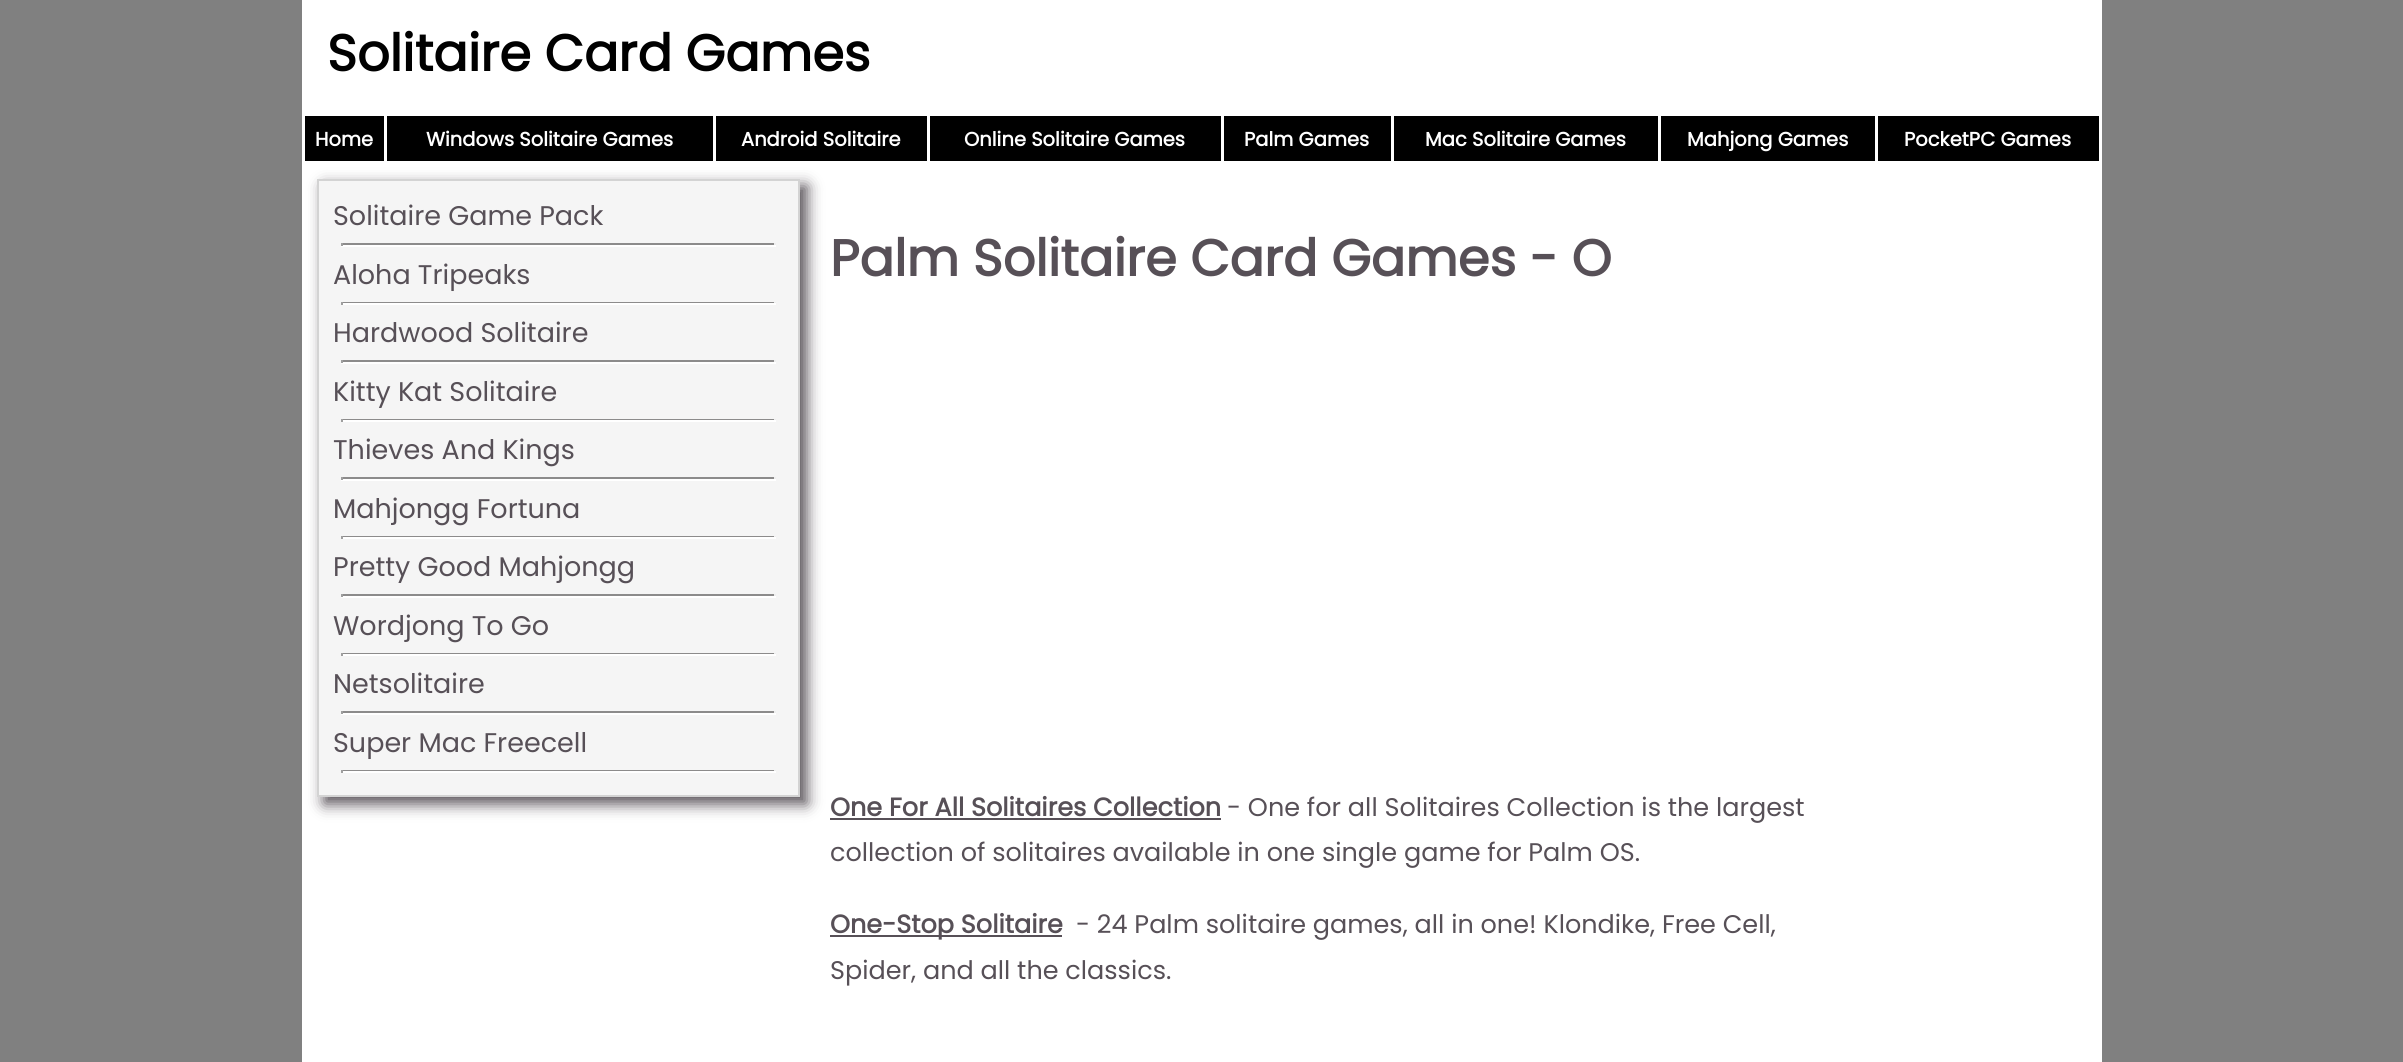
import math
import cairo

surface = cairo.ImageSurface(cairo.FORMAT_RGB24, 2403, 1062)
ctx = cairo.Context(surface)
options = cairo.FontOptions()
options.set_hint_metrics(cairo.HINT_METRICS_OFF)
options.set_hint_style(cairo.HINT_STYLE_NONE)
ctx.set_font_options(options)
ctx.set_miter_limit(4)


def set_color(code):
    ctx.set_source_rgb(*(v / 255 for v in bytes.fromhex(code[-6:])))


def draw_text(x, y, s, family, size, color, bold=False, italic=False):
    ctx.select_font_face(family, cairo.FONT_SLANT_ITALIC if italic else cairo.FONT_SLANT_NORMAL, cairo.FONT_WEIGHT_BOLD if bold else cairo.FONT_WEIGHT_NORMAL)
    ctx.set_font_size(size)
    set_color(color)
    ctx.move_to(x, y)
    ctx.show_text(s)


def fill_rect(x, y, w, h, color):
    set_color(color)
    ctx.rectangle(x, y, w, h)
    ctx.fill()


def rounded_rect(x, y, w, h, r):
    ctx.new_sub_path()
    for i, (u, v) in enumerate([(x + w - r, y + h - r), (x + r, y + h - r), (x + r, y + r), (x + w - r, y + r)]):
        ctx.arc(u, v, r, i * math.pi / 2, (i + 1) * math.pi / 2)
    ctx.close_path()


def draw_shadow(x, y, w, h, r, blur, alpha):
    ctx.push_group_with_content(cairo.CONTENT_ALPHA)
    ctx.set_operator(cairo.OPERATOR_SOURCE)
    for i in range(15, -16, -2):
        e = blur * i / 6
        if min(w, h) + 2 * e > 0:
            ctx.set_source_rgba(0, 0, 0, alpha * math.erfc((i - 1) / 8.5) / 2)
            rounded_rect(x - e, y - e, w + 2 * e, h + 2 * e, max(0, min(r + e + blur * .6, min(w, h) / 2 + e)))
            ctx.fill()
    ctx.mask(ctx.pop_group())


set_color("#808080")
ctx.paint()
fill_rect(302, 0, 1800, 1062, "#ffffff")
draw_text(327, 71, "Solitaire Card Games", "Poppins", 51, "#000000", bold=True)
fill_rect(305, 116, 79, 45, "#000000")
draw_text(315, 146, "Home", "Poppins", 19.5, "#ffffff", bold=True)
fill_rect(387, 116, 326, 45, "#000000")
draw_text(426, 146, "Windows Solitaire Games", "Poppins", 19.5, "#ffffff", bold=True)
fill_rect(716, 116, 211, 45, "#000000")
draw_text(741, 146, "Android Solitaire", "Poppins", 19.5, "#ffffff", bold=True)
fill_rect(930, 116, 291, 45, "#000000")
draw_text(964, 146, "Online Solitaire Games", "Poppins", 19.5, "#ffffff", bold=True)
fill_rect(1224, 116, 167, 45, "#000000")
draw_text(1244, 146, "Palm Games", "Poppins", 19.5, "#ffffff", bold=True)
fill_rect(1394, 116, 264, 45, "#000000")
draw_text(1425, 146, "Mac Solitaire Games", "Poppins", 19.5, "#ffffff", bold=True)
fill_rect(1661, 116, 214, 45, "#000000")
draw_text(1687, 146, "Mahjong Games", "Poppins", 19.5, "#ffffff", bold=True)
fill_rect(1878, 116, 221, 45, "#000000")
draw_text(1904, 146, "PocketPC Games", "Poppins", 19.5, "#ffffff", bold=True)
set_color("#575057")
draw_shadow(324, 186, 483, 618, 0, 7.5, 1)
set_color("#f5f5f5")
ctx.rectangle(318, 180, 481, 616)
ctx.fill_preserve()
set_color("#d3d3d3")
ctx.stroke()
draw_text(333, 225, "Solitaire Game Pack", "Poppins", 27, "#575057")
fill_rect(341, 243, 435, 2, "#8c8b8b")
fill_rect(774, 243, 2, 3, "#eeeeee")
fill_rect(341, 245, 435, 2, "#ffffff")
fill_rect(341, 243, 2, 3, "#9f9f9f")
draw_text(333, 284, "Aloha Tripeaks", "Poppins", 27, "#575057")
fill_rect(341, 302, 435, 1, "#8c8b8b")
fill_rect(774, 302, 2, 3, "#eeeeee")
fill_rect(341, 303, 435, 2, "#ffffff")
fill_rect(341, 302, 2, 3, "#9f9f9f")
draw_text(333, 342, "Hardwood Solitaire", "Poppins", 27, "#575057")
fill_rect(341, 360, 435, 2, "#8c8b8b")
fill_rect(774, 360, 2, 3, "#eeeeee")
fill_rect(341, 362, 435, 2, "#ffffff")
fill_rect(341, 360, 2, 3, "#9f9f9f")
draw_text(333, 401, "Kitty Kat Solitaire", "Poppins", 27, "#575057")
fill_rect(341, 419, 435, 1, "#8c8b8b")
fill_rect(774, 419, 2, 3, "#eeeeee")
fill_rect(341, 420, 435, 2, "#ffffff")
fill_rect(341, 419, 2, 3, "#9f9f9f")
draw_text(333, 459, "Thieves And Kings", "Poppins", 27, "#575057")
fill_rect(341, 477, 435, 2, "#8c8b8b")
fill_rect(774, 477, 2, 3, "#eeeeee")
fill_rect(341, 479, 435, 2, "#ffffff")
fill_rect(341, 477, 2, 3, "#9f9f9f")
draw_text(333, 518, "Mahjongg Fortuna", "Poppins", 27, "#575057")
fill_rect(341, 536, 435, 1, "#8c8b8b")
fill_rect(774, 536, 2, 3, "#eeeeee")
fill_rect(341, 537, 435, 2, "#ffffff")
fill_rect(341, 536, 2, 3, "#9f9f9f")
draw_text(333, 576, "Pretty Good Mahjongg", "Poppins", 27, "#575057")
fill_rect(341, 594, 435, 2, "#8c8b8b")
fill_rect(774, 594, 2, 3, "#eeeeee")
fill_rect(341, 596, 435, 2, "#ffffff")
fill_rect(341, 594, 2, 3, "#9f9f9f")
draw_text(333, 635, "Wordjong To Go", "Poppins", 27, "#575057")
fill_rect(341, 653, 435, 1, "#8c8b8b")
fill_rect(774, 653, 2, 3, "#eeeeee")
fill_rect(341, 654, 435, 2, "#ffffff")
fill_rect(341, 653, 2, 3, "#9f9f9f")
draw_text(333, 693, "Netsolitaire", "Poppins", 27, "#575057")
fill_rect(341, 711, 435, 2, "#8c8b8b")
fill_rect(774, 711, 2, 3, "#eeeeee")
fill_rect(341, 713, 435, 2, "#ffffff")
fill_rect(341, 711, 2, 3, "#9f9f9f")
draw_text(333, 752, "Super Mac Freecell", "Poppins", 27, "#575057")
fill_rect(341, 770, 435, 1, "#8c8b8b")
fill_rect(774, 770, 2, 3, "#eeeeee")
fill_rect(341, 771, 435, 2, "#ffffff")
fill_rect(341, 770, 2, 3, "#9f9f9f")
draw_text(830, 276, "Palm Solitaire Card Games - O", "Poppins", 51, "#575057", bold=True)
draw_text(830, 816, "One For All Solitaires Collection", "Poppins", 25.5, "#575057", bold=True)
fill_rect(830, 818, 391, 2, "#575057")
draw_text(1227, 816, "- One for all Solitaires Collection is the largest", "Poppins", 25.5, "#575057")
draw_text(830, 861, "collection of solitaires available in one single game for Palm OS.", "Poppins", 25.5, "#575057")
fill_rect(830, 935, 232, 2, "#575057")
draw_text(830, 933, "One-Stop Solitaire", "Poppins", 25.5, "#575057", bold=True)
draw_text(1076, 933, "- 24 Palm solitaire games, all in one! Klondike, Free Cell,", "Poppins", 25.5, "#575057")
draw_text(830, 979, "Spider, and all the classics.", "Poppins", 25.5, "#575057")
surface.write_to_png("output.png")
